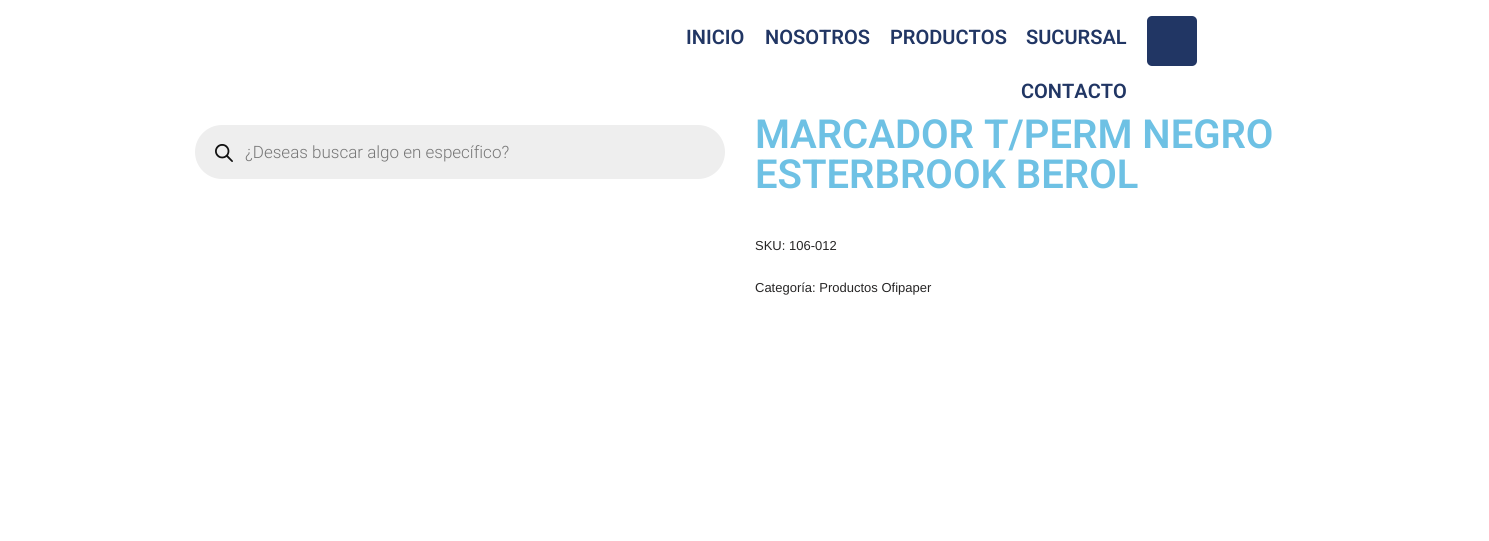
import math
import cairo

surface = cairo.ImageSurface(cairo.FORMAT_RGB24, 1489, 541)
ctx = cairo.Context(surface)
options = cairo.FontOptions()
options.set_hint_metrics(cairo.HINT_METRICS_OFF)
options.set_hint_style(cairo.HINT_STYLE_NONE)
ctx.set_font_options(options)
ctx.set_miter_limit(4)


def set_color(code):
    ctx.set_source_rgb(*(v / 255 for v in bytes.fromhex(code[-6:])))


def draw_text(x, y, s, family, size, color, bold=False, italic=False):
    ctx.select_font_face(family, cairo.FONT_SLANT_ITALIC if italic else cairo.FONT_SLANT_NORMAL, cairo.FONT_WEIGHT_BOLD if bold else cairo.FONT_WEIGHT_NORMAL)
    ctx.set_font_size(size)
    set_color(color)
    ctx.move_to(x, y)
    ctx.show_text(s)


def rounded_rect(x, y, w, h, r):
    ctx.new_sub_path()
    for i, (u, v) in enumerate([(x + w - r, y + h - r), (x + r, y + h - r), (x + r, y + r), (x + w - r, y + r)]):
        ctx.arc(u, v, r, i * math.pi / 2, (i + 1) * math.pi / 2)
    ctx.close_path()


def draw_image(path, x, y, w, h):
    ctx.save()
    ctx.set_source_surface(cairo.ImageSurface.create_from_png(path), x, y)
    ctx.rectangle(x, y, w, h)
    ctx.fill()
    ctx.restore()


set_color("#ffffff")
ctx.paint()
draw_text(686, 44, "INICIO", "Roboto SemiBold", 20, "#213664")
draw_text(765, 44, "NOSOTROS", "Roboto SemiBold", 20, "#213664")
draw_text(890, 44, "PRODUCTOS", "Roboto SemiBold", 20, "#213664")
draw_text(1026, 44, "SUCURSAL", "Roboto SemiBold", 20, "#213664")
draw_text(1021, 98, "CONTACTO", "Roboto SemiBold", 20, "#213664")
rounded_rect(1147, 16, 50, 50, 5)
ctx.fill()
set_color("#eeeeee")
rounded_rect(195, 125, 530, 54, 27)
ctx.fill()
draw_image("assets/img1.png", 215, 144, 18, 18)
draw_text(245, 158, "¿Deseas buscar algo en específico?", "Roboto Light", 17, "#777777")
draw_text(755, 148, "MARCADOR T/PERM NEGRO", "Roboto SemiBold", 40, "#6ec1e4")
draw_text(755, 188, "ESTERBROOK BEROL", "Roboto SemiBold", 40, "#6ec1e4")
draw_text(755, 250, "SKU: 106-012", "Liberation Sans", 13, "#272626")
draw_text(755, 292, "Categoría: Productos Ofipaper", "Liberation Sans", 13, "#272626")
surface.write_to_png("output.png")
